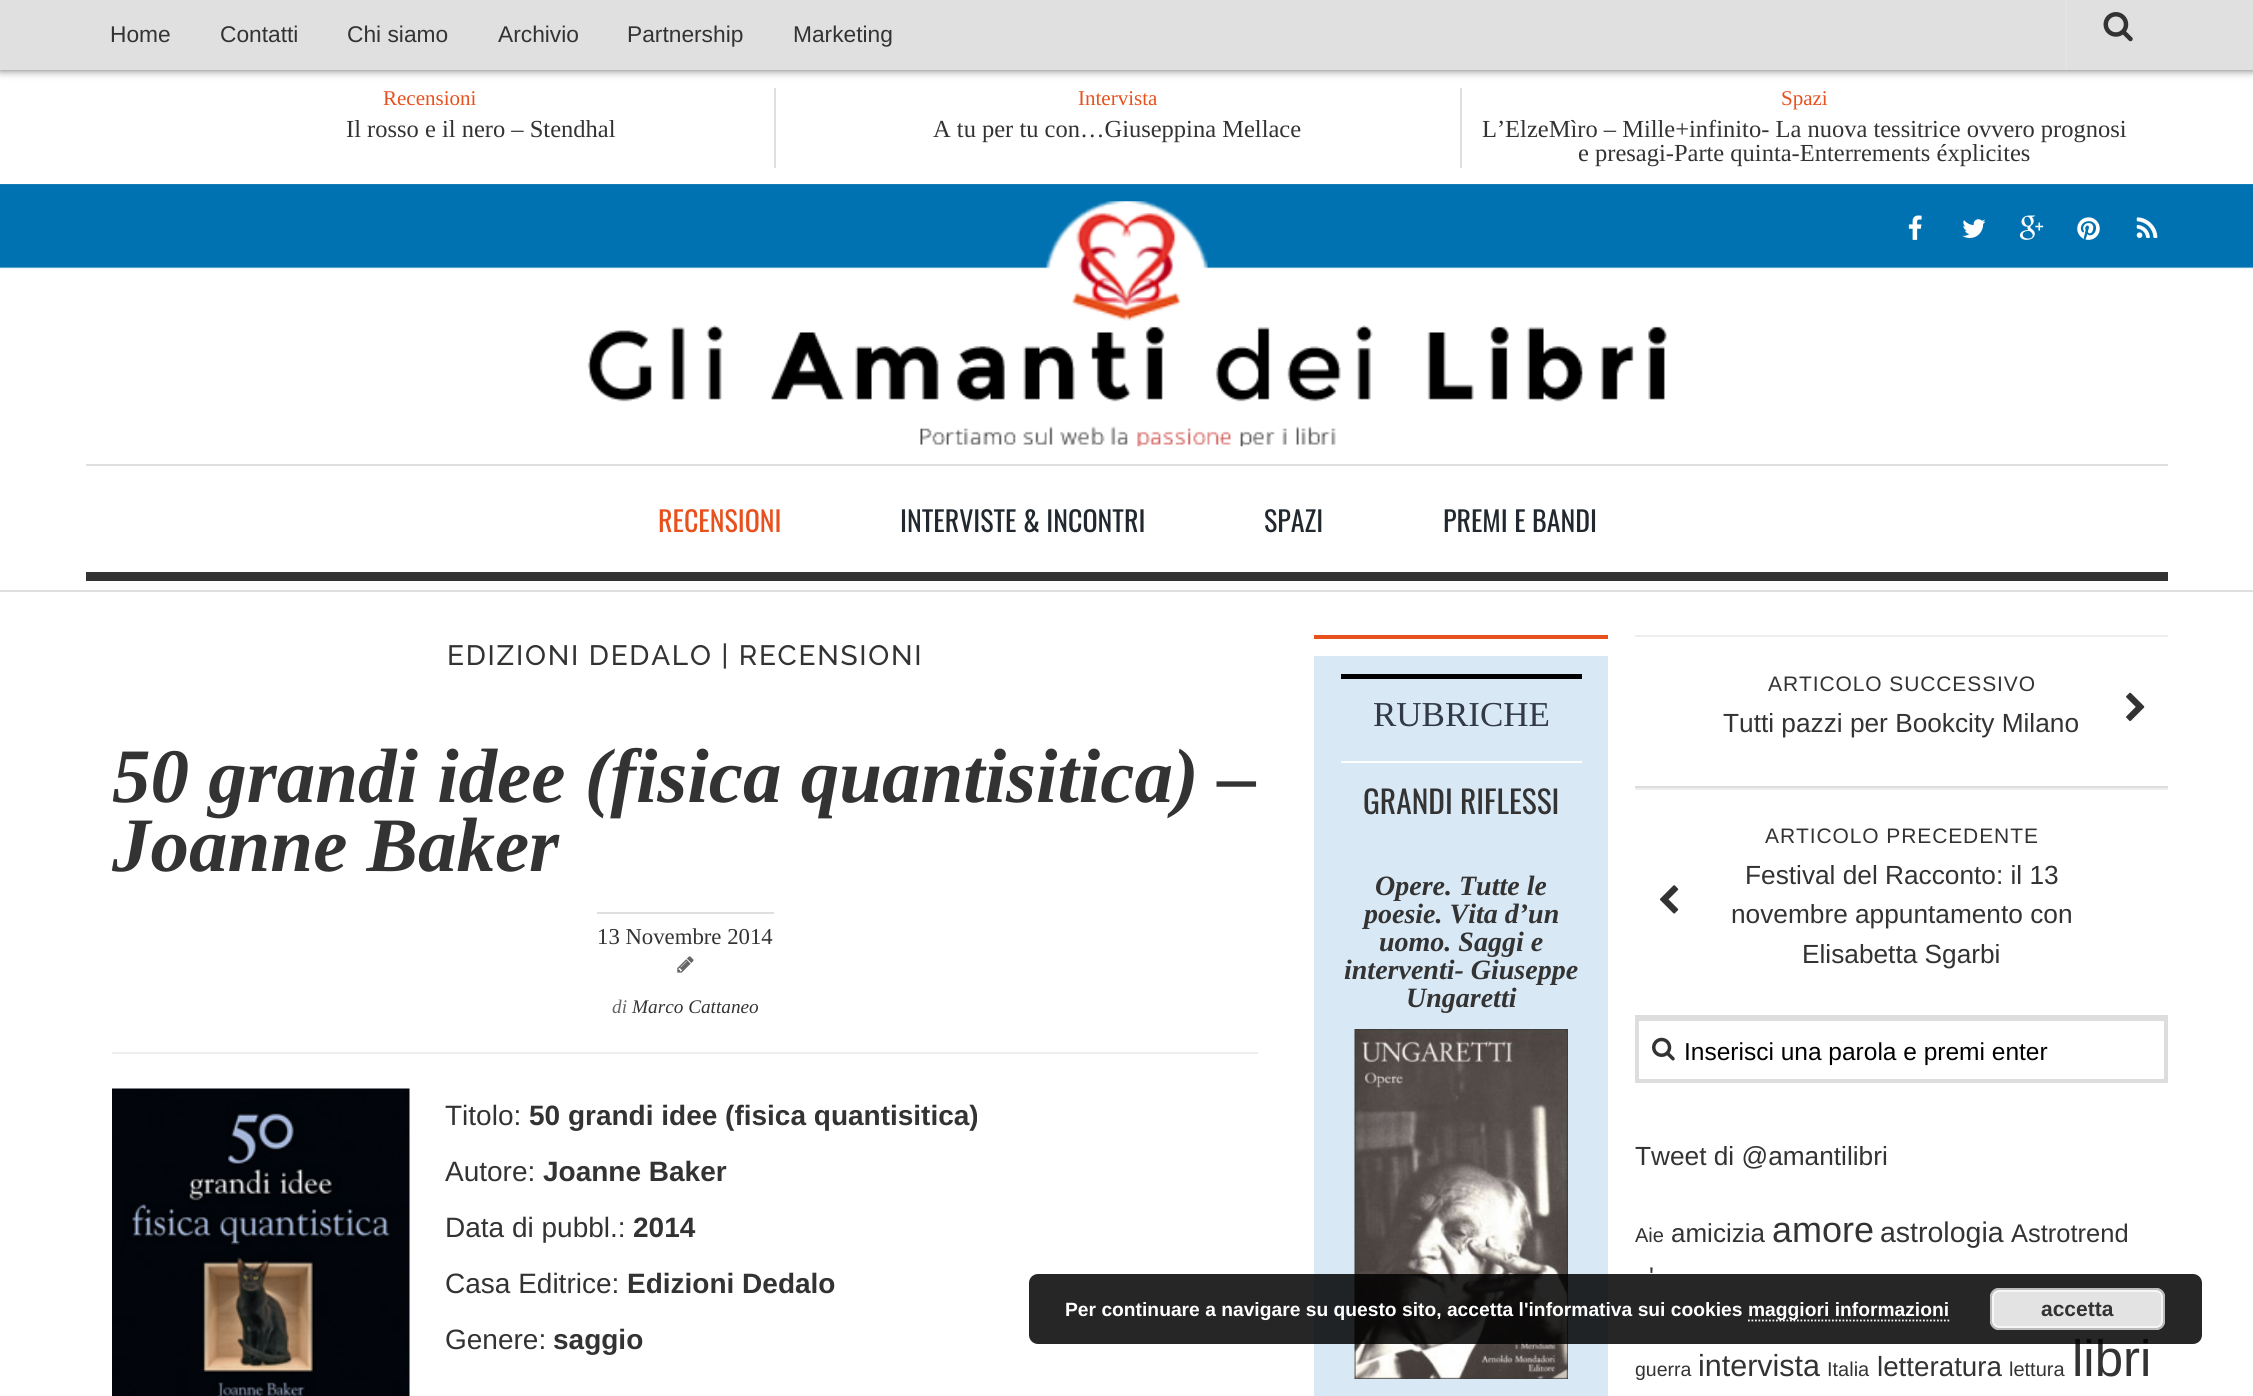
import math
import cairo

surface = cairo.ImageSurface(cairo.FORMAT_RGB24, 2253, 1396)
ctx = cairo.Context(surface)
options = cairo.FontOptions()
options.set_hint_metrics(cairo.HINT_METRICS_OFF)
options.set_hint_style(cairo.HINT_STYLE_NONE)
ctx.set_font_options(options)
ctx.set_miter_limit(4)


def set_color(code):
    ctx.set_source_rgb(*(v / 255 for v in bytes.fromhex(code[-6:])))


def draw_text(x, y, s, family, size, color, bold=False, italic=False):
    ctx.select_font_face(family, cairo.FONT_SLANT_ITALIC if italic else cairo.FONT_SLANT_NORMAL, cairo.FONT_WEIGHT_BOLD if bold else cairo.FONT_WEIGHT_NORMAL)
    ctx.set_font_size(size)
    set_color(color)
    ctx.move_to(x, y)
    ctx.show_text(s)


def draw_spaced(x, y, s, letter, word):
    ctx.move_to(x, y)
    for ch in s:
        ctx.show_text(ch)
        ctx.rel_move_to(letter + word * (ch == ' '), 0)


def fill_rect(x, y, w, h, color):
    set_color(color)
    ctx.rectangle(x, y, w, h)
    ctx.fill()


def rounded_rect(x, y, w, h, r):
    ctx.new_sub_path()
    for i, (u, v) in enumerate([(x + w - r, y + h - r), (x + r, y + h - r), (x + r, y + r), (x + w - r, y + r)]):
        ctx.arc(u, v, r, i * math.pi / 2, (i + 1) * math.pi / 2)
    ctx.close_path()


def draw_shadow(x, y, w, h, r, blur, alpha):
    ctx.push_group_with_content(cairo.CONTENT_ALPHA)
    ctx.set_operator(cairo.OPERATOR_SOURCE)
    for i in range(15, -16, -2):
        e = blur * i / 6
        if min(w, h) + 2 * e > 0:
            ctx.set_source_rgba(0, 0, 0, alpha * math.erfc((i - 1) / 8.5) / 2)
            rounded_rect(x - e, y - e, w + 2 * e, h + 2 * e, max(0, min(r + e + blur * .6, min(w, h) / 2 + e)))
            ctx.fill()
    ctx.mask(ctx.pop_group())


def draw_image(path, x, y, w, h):
    ctx.save()
    ctx.set_source_surface(cairo.ImageSurface.create_from_png(path), x, y)
    ctx.rectangle(x, y, w, h)
    ctx.fill()
    ctx.restore()


set_color("#ffffff")
ctx.paint()
draw_image("assets/img1.png", 0, 184, 2253, 85)
set_color("#666666")
draw_shadow(0, 0, 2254, 70, 0, 4.5, 1)
fill_rect(0, 0, 2253, 70, "#e0e0e0")
draw_text(110, 42, "Home", "Liberation Sans", 22.75, "#333333")
draw_text(220, 42, "Contatti", "Liberation Sans", 22.75, "#333333")
draw_text(347, 42, "Chi siamo", "Liberation Sans", 22.75, "#333333")
draw_text(498, 42, "Archivio", "Liberation Sans", 22.75, "#333333")
draw_text(627, 42, "Partnership", "Liberation Sans", 22.75, "#333333")
draw_text(793, 42, "Marketing", "Liberation Sans", 22.75, "#333333")
fill_rect(2065, 0, 2, 70, "#e3e3e3")
draw_image("assets/img2.png", 2103, 12, 30, 30)
draw_text(383, 105, "Recensioni", "Liberation Serif", 21, "#e7511e")
draw_text(346, 137, "Il rosso e il nero – Stendhal", "Liberation Serif", 24.5, "#333333")
fill_rect(774, 88, 2, 80, "#dfdfdf")
draw_text(1078, 105, "Intervista", "Liberation Serif", 21, "#e7511e")
draw_text(933, 137, "A tu per tu con…Giuseppina Mellace", "Liberation Serif", 24.5, "#333333")
fill_rect(1460, 88, 2, 80, "#dfdfdf")
draw_text(1781, 105, "Spazi", "Liberation Serif", 21, "#e7511e")
draw_text(1482, 137, "L’ElzeMìro – Mille+infinito- La nuova tessitrice ovvero prognosi", "Liberation Serif", 24.5, "#333333")
draw_text(1578, 161, "e presagi-Parte quinta-Enterrements éxplicites", "Liberation Serif", 24.5, "#333333")
draw_image("assets/img3.png", 587, 201, 1080, 246)
draw_image("assets/img4.png", 1908, 215, 14, 25)
draw_image("assets/img5.png", 1962, 219, 24, 19)
draw_image("assets/img6.png", 2020, 215, 24, 25)
draw_image("assets/img7.png", 2077, 217, 23, 23)
draw_image("assets/img8.png", 2136, 217, 22, 21)
fill_rect(86, 464, 2082, 2, "#dfdfdf")
fill_rect(86, 572, 2082, 9, "#333333")
draw_text(658, 532, "RECENSIONI", "Oswald", 28, "#e7511e")
draw_text(900, 532, "INTERVISTE & INCONTRI", "Oswald", 28, "#22282f")
draw_text(1264, 532, "SPAZI", "Oswald", 28, "#22282f")
draw_text(1443, 532, "PREMI E BANDI", "Oswald", 28, "#22282f")
fill_rect(0, 590, 2253, 2, "#dfdfdf")
ctx.select_font_face("Raleway Medium")
set_color("#333333")
draw_spaced(447, 665, "EDIZIONI DEDALO | RECENSIONI", 1.75, 0)
draw_text(112, 802, "50 grandi idee (fisica quantisitica) –", "Liberation Serif", 77, "#333333", bold=True, italic=True)
draw_text(112, 871, "Joanne Baker", "Liberation Serif", 77, "#333333", bold=True, italic=True)
draw_text(597, 944, "13 Novembre 2014", "Liberation Serif", 22.75, "#333333")
fill_rect(597, 912, 177, 2, "#dfdfdf")
fill_rect(112, 1052, 1146, 2, "#eeeeee")
draw_image("assets/img9.png", 677, 956, 17, 17)
draw_text(612, 1013, "di", "Liberation Serif", 19.25, "#666666", italic=True)
draw_text(632, 1013, "Marco Cattaneo", "Liberation Serif", 19.25, "#333333", italic=True)
draw_image("assets/img10.png", 112, 1088, 298, 308)
draw_text(445, 1125, "Titolo:", "Liberation Sans", 28, "#333333")
draw_text(529, 1125, "50 grandi idee (fisica quantisitica)", "Liberation Sans", 28, "#333333", bold=True)
draw_text(445, 1181, "Autore:", "Liberation Sans", 28, "#333333")
draw_text(543, 1181, "Joanne Baker", "Liberation Sans", 28, "#333333", bold=True)
draw_text(445, 1237, "Data di pubbl.:", "Liberation Sans", 28, "#333333")
draw_text(633, 1237, "2014", "Liberation Sans", 28, "#333333", bold=True)
draw_text(445, 1293, "Casa Editrice:", "Liberation Sans", 28, "#333333")
draw_text(627, 1293, "Edizioni Dedalo", "Liberation Sans", 28, "#333333", bold=True)
draw_text(445, 1349, "Genere:", "Liberation Sans", 28, "#333333")
draw_text(553, 1349, "saggio", "Liberation Sans", 28, "#333333", bold=True)
fill_rect(1314, 635, 294, 4, "#e7511e")
fill_rect(1314, 656, 294, 740, "#d9e8f5")
fill_rect(1341, 674, 241, 5, "#000000")
draw_text(1373, 726, "RUBRICHE", "Liberation Serif", 35, "#323a46")
fill_rect(1341, 761, 241, 2, "#ffffff")
draw_text(1363, 814, "GRANDI RIFLESSI", "Oswald", 31.5, "#333333")
draw_text(1375, 895, "Opere. Tutte le", "Liberation Serif", 28, "#333333", bold=True, italic=True)
draw_text(1364, 923, "poesie. Vita d’un", "Liberation Serif", 28, "#333333", bold=True, italic=True)
draw_text(1379, 951, "uomo. Saggi e", "Liberation Serif", 28, "#333333", bold=True, italic=True)
draw_text(1344, 979, "interventi- Giuseppe", "Liberation Serif", 28, "#333333", bold=True, italic=True)
draw_text(1406, 1007, "Ungaretti", "Liberation Serif", 28, "#333333", bold=True, italic=True)
draw_image("assets/img11.png", 1354, 1029, 214, 350)
fill_rect(1635, 635, 533, 2, "#eeeeee")
fill_rect(1635, 786, 533, 2, "#dddddd")
ctx.select_font_face("Liberation Sans")
ctx.set_font_size(21)
set_color("#333333")
draw_spaced(1768, 691, "ARTICOLO SUCCESSIVO", 0.9, 0)
draw_image("assets/img12.png", 2126, 692, 19, 29)
draw_text(1723, 732, "Tutti pazzi per Bookcity Milano", "Liberation Sans", 26.25, "#333333")
fill_rect(1635, 788, 533, 2, "#eeeeee")
fill_rect(1635, 1015, 533, 2, "#dddddd")
ctx.set_font_size(21)
set_color("#333333")
draw_spaced(1765, 843, "ARTICOLO PRECEDENTE", 0.9, 0)
draw_text(1745, 884, "Festival del Racconto: il 13", "Liberation Sans", 26.25, "#333333")
draw_image("assets/img13.png", 1660, 885, 19, 29)
draw_text(1731, 923, "novembre appuntamento con", "Liberation Sans", 26.25, "#333333")
draw_text(1802, 963, "Elisabetta Sgarbi", "Liberation Sans", 26.25, "#333333")
ctx.rectangle(1637, 1019, 529, 62)
set_color("#dddddd")
ctx.set_line_width(4)
ctx.stroke()
draw_image("assets/img14.png", 1652, 1037, 23, 24)
draw_text(1684, 1060, "Inserisci una parola e premi enter", "Liberation Sans", 24.5, "#000000")
draw_text(1635, 1165, "Tweet di @amantilibri", "Liberation Sans", 26.25, "#333333")
draw_text(1635, 1242, "Aie", "Liberation Sans", 20, "#333333")
draw_text(1671, 1242, "amicizia", "Liberation Sans", 26, "#333333")
draw_text(1772, 1242, "amore", "Liberation Sans", 36, "#333333")
draw_text(1880, 1242, "astrologia", "Liberation Sans", 28.5, "#333333")
draw_text(2011, 1242, "Astrotrend", "Liberation Sans", 25.5, "#333333")
draw_text(1649, 1285, "'", "Liberation Sans", 25.5, "#333333")
draw_text(1635, 1376, "guerra", "Liberation Sans", 19.5, "#333333")
draw_text(1698, 1376, "intervista", "Liberation Sans", 30.5, "#333333")
draw_text(1827, 1376, "Italia", "Liberation Sans", 20, "#333333")
draw_text(1877, 1376, "letteratura", "Liberation Sans", 27.75, "#333333")
draw_text(2009, 1376, "lettura", "Liberation Sans", 20, "#333333")
draw_text(2072, 1376, "libri", "Liberation Sans", 51, "#333333")
ctx.set_source_rgba(0, 0, 0, 0.85)
rounded_rect(1029, 1274, 1173, 70, 9)
ctx.fill()
draw_text(1065, 1316, "Per continuare a navigare su questo sito, accetta l'informativa sui cookies", "Liberation Sans", 19.25, "#ffffff", bold=True)
ctx.new_path()
ctx.move_to(1748, 1320.5)
ctx.line_to(1949.5, 1320.5)
ctx.set_line_width(1.8)
ctx.set_dash([1.75, 1.75])
ctx.stroke()
draw_text(1748, 1316, "maggiori informazioni", "Liberation Sans", 19.25, "#ffffff", bold=True)
set_color("#e3e3e3")
rounded_rect(1990, 1288, 175, 42, 9)
ctx.fill()
rounded_rect(1993, 1291, 169, 36, 6)
set_color("#f6f6f6")
ctx.set_line_width(2)
ctx.set_dash([])
ctx.stroke()
rounded_rect(1991, 1289, 173, 40, 8)
set_color("#bbbbbb")
ctx.stroke()
draw_text(2041, 1316, "accetta", "Liberation Sans", 21, "#333333", bold=True)
surface.write_to_png("output.png")
